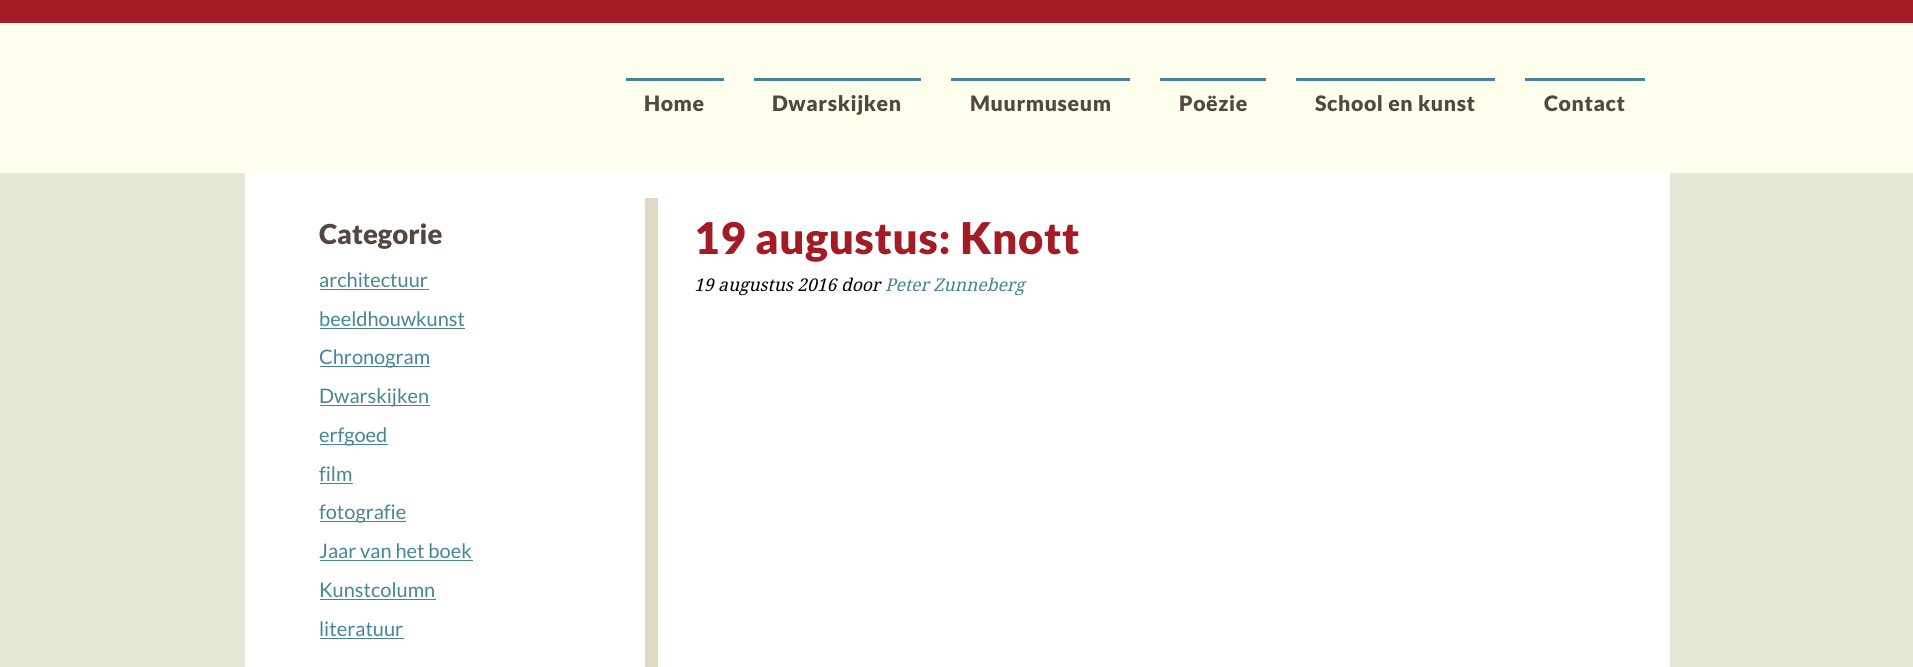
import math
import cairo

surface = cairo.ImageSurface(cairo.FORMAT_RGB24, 1913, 667)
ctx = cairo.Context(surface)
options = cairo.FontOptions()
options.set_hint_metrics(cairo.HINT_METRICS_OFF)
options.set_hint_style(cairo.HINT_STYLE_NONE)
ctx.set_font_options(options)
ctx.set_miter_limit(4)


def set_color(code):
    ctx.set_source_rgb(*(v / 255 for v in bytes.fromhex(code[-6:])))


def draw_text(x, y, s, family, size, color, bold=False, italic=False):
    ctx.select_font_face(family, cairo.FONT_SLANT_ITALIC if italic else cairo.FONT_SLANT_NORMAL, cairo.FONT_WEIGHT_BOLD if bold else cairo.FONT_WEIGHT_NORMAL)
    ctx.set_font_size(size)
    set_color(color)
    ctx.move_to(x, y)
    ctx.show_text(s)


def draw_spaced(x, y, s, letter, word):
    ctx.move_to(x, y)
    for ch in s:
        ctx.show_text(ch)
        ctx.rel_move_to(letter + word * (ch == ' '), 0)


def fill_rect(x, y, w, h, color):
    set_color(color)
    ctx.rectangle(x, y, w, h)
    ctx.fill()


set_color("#e7e7d6")
ctx.paint()
fill_rect(0, 23, 1913, 150, "#ffffee")
fill_rect(0, 0, 1913, 23, "#a21b25")
fill_rect(626, 78, 98, 3, "#458594")
ctx.select_font_face("Lato Black")
ctx.set_font_size(21.25)
set_color("#534741")
draw_spaced(644, 111, "Home", 0.6, 0)
fill_rect(754, 78, 167, 3, "#458594")
set_color("#534741")
draw_spaced(772, 111, "Dwarskijken", 0.6, 0)
fill_rect(951, 78, 179, 3, "#458594")
set_color("#534741")
draw_spaced(970, 111, "Muurmuseum", 0.6, 0)
fill_rect(1160, 78, 106, 3, "#458594")
set_color("#534741")
draw_spaced(1179, 111, "Poëzie", 0.6, 0)
fill_rect(1296, 78, 199, 3, "#458594")
set_color("#534741")
draw_spaced(1315, 111, "School en kunst", 0.6, 0)
fill_rect(1525, 78, 120, 3, "#458594")
set_color("#534741")
draw_spaced(1544, 111, "Contact", 0.6, 0)
fill_rect(245, 173, 1425, 494, "#ffffff")
fill_rect(645, 198, 13, 469, "#e0d9c8")
draw_text(319, 244, "Categorie", "Lato Black", 27.5, "#534741")
draw_text(319, 287, "architectuur", "Lato", 20, "#458594")
fill_rect(320, 289, 109, 1, "#458594")
draw_text(319, 326, "beeldhouwkunst", "Lato", 20, "#458594")
fill_rect(320, 328, 145, 1, "#458594")
fill_rect(320, 366, 110, 1, "#458594")
draw_text(319, 364, "Chronogram", "Lato", 20, "#458594")
fill_rect(320, 405, 110, 1, "#458594")
draw_text(319, 403, "Dwarskijken", "Lato", 20, "#458594")
fill_rect(320, 444, 68, 1, "#458594")
draw_text(319, 442, "erfgoed", "Lato", 20, "#458594")
draw_text(319, 481, "film", "Lato", 20, "#458594")
fill_rect(320, 483, 33, 1, "#458594")
fill_rect(320, 521, 86, 1, "#458594")
draw_text(319, 519, "fotografie", "Lato", 20, "#458594")
draw_text(319, 558, "Jaar van het boek", "Lato", 20, "#458594")
fill_rect(320, 560, 153, 1, "#458594")
draw_text(319, 597, "Kunstcolumn", "Lato", 20, "#458594")
fill_rect(320, 599, 116, 1, "#458594")
draw_text(319, 636, "literatuur", "Lato", 20, "#458594")
fill_rect(320, 638, 84, 1, "#458594")
ctx.select_font_face("Lato Black")
ctx.set_font_size(43.75)
set_color("#a21b25")
draw_spaced(694, 254, "19 augustus: Knott", 0.6, 0)
draw_text(694, 291, "19 augustus 2016 door", "Droid Serif", 17.5, "#000000", italic=True)
draw_text(885, 291, "Peter Zunneberg", "Droid Serif", 17.5, "#458594", italic=True)
surface.write_to_png("output.png")
